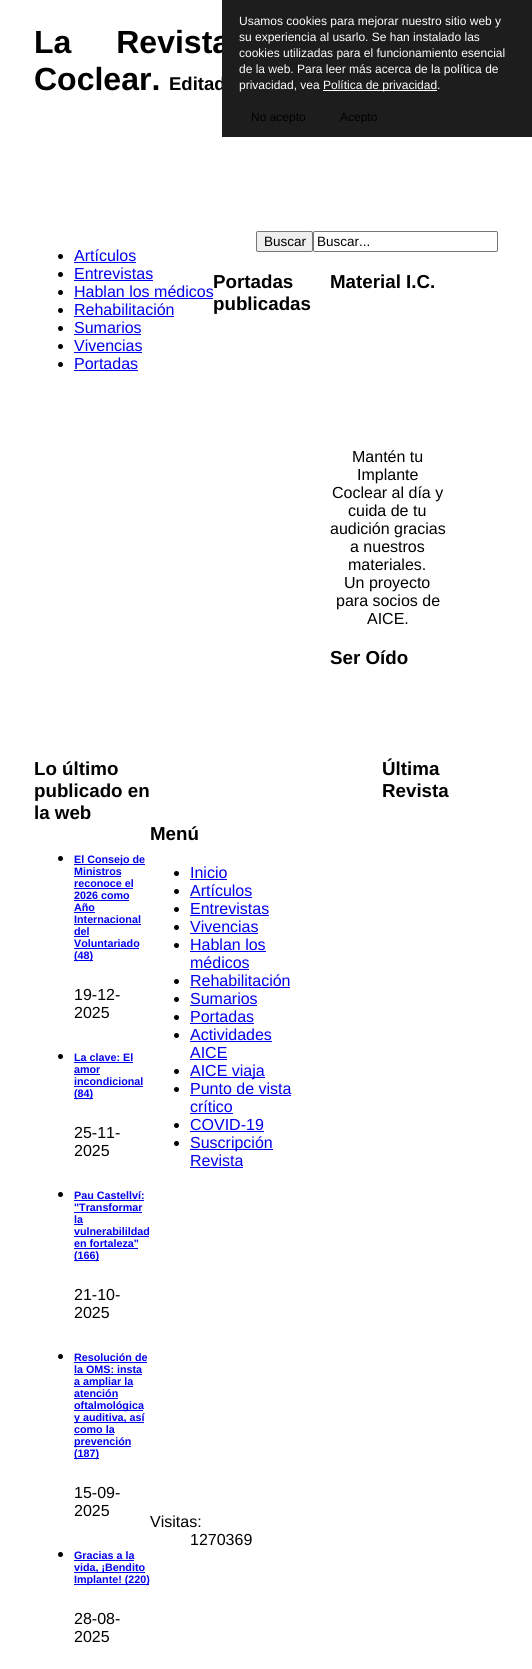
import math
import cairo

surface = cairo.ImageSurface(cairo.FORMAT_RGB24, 532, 1669)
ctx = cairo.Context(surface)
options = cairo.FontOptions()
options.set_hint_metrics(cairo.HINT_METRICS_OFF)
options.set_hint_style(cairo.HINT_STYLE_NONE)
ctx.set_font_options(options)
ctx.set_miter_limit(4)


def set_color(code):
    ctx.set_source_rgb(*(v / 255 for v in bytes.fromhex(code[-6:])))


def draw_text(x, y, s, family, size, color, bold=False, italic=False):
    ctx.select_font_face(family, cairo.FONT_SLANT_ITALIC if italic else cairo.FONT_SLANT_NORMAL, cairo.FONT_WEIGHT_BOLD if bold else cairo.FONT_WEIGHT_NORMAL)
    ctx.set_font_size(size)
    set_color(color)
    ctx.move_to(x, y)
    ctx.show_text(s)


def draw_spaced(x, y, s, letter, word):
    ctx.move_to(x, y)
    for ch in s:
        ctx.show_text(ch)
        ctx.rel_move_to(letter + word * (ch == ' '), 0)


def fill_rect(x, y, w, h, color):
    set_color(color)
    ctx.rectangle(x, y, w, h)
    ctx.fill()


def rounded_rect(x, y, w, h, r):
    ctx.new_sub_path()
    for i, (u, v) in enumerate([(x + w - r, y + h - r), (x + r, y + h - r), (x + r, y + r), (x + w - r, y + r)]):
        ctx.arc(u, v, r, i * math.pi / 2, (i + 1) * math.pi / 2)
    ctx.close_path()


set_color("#ffffff")
ctx.paint()
ctx.select_font_face("Liberation Sans", cairo.FONT_SLANT_NORMAL, cairo.FONT_WEIGHT_BOLD)
ctx.set_font_size(32)
set_color("#000000")
draw_spaced(34, 53, "La Revista", 0, 36)
draw_text(169, 90, "Editad", "Liberation Sans", 18.5, "#000000", bold=True)
fill_rect(222, 0, 310, 137, "#1d1d1d")
draw_text(239, 25, "Usamos cookies para mejorar nuestro sitio web y", "Liberation Sans", 12, "#ffffff")
draw_text(239, 41, "su experiencia al usarlo. Se han instalado las", "Liberation Sans", 12, "#ffffff")
draw_text(239, 57, "cookies utilizadas para el funcionamiento esencial", "Liberation Sans", 12, "#ffffff")
draw_text(239, 73, "de la web. Para leer más acerca de la política de", "Liberation Sans", 12, "#ffffff")
draw_text(239, 89, "privacidad, vea", "Liberation Sans", 12, "#ffffff")
fill_rect(323, 90, 114, 1, "#ffffff")
draw_text(323, 89, "Política de privacidad.", "Liberation Sans", 12, "#ffffff")
draw_text(251, 121, "No acepto", "Liberation Sans", 12, "#000000")
draw_text(340, 121, "Acepto", "Liberation Sans", 12, "#000000")
draw_text(34, 90, "Coclear.", "Liberation Sans", 32, "#000000", bold=True)
set_color("#efefef")
rounded_rect(256.5, 231.5, 56, 20, 1.5)
ctx.fill_preserve()
set_color("#767676")
ctx.set_line_width(1)
ctx.stroke()
draw_text(264, 246, "Buscar", "Liberation Sans", 13.5, "#000000")
rounded_rect(313.5, 231.5, 184, 20, 1.5)
set_color("#767676")
ctx.stroke()
draw_text(317, 246, "Buscar...", "Liberation Sans", 13.5, "#000000")
ctx.new_path()
ctx.arc(60.5, 256.5, 2.5, 0, 2 * math.pi)
ctx.fill()
draw_text(74, 261, "Artículos", "Liberation Sans", 16, "#0000ee")
fill_rect(74, 262, 62, 1, "#0000ee")
set_color("#000000")
ctx.new_path()
ctx.arc(60.5, 274.5, 2.5, 0, 2 * math.pi)
ctx.fill()
draw_text(74, 279, "Entrevistas", "Liberation Sans", 16, "#0000ee")
fill_rect(74, 280, 79, 1, "#0000ee")
set_color("#000000")
ctx.new_path()
ctx.arc(60.5, 292.5, 2.5, 0, 2 * math.pi)
ctx.fill()
draw_text(74, 297, "Hablan los médicos", "Liberation Sans", 16, "#0000ee")
fill_rect(74, 298, 139, 1, "#0000ee")
set_color("#000000")
ctx.new_path()
ctx.arc(60.5, 310.5, 2.5, 0, 2 * math.pi)
ctx.fill()
draw_text(74, 315, "Rehabilitación", "Liberation Sans", 16, "#0000ee")
fill_rect(74, 316, 100, 1, "#0000ee")
set_color("#000000")
ctx.new_path()
ctx.arc(60.5, 328.5, 2.5, 0, 2 * math.pi)
ctx.fill()
draw_text(74, 333, "Sumarios", "Liberation Sans", 16, "#0000ee")
fill_rect(74, 334, 67, 1, "#0000ee")
set_color("#000000")
ctx.new_path()
ctx.arc(60.5, 346.5, 2.5, 0, 2 * math.pi)
ctx.fill()
draw_text(74, 351, "Vivencias", "Liberation Sans", 16, "#0000ee")
fill_rect(74, 352, 68, 1, "#0000ee")
set_color("#000000")
ctx.new_path()
ctx.arc(60.5, 364.5, 2.5, 0, 2 * math.pi)
ctx.fill()
draw_text(74, 369, "Portadas", "Liberation Sans", 16, "#0000ee")
fill_rect(74, 370, 64, 1, "#0000ee")
draw_text(213, 288, "Portadas", "Liberation Sans", 18.75, "#000000", bold=True)
draw_text(213, 310, "publicadas", "Liberation Sans", 18.75, "#000000", bold=True)
draw_text(330, 288, "Material I.C.", "Liberation Sans", 18.75, "#000000", bold=True)
draw_text(352, 462, "Mantén tu", "Liberation Sans", 16, "#000000")
draw_text(357, 480, "Implante", "Liberation Sans", 16, "#000000")
draw_text(332, 498, "Coclear al día y", "Liberation Sans", 16, "#000000")
draw_text(348, 516, "cuida de tu", "Liberation Sans", 16, "#000000")
draw_text(330, 534, "audición gracias", "Liberation Sans", 16, "#000000")
draw_text(350, 552, "a nuestros", "Liberation Sans", 16, "#000000")
draw_text(348, 570, "materiales.", "Liberation Sans", 16, "#000000")
draw_text(344, 588, "Un proyecto", "Liberation Sans", 16, "#000000")
draw_text(336, 606, "para socios de", "Liberation Sans", 16, "#000000")
draw_text(367, 624, "AICE.", "Liberation Sans", 16, "#000000")
draw_text(330, 664, "Ser Oído", "Liberation Sans", 18.75, "#000000", bold=True)
draw_text(34, 775, "Lo último", "Liberation Sans", 18.75, "#000000", bold=True)
draw_text(34, 797, "publicado en", "Liberation Sans", 18.75, "#000000", bold=True)
draw_text(34, 819, "la web", "Liberation Sans", 18.75, "#000000", bold=True)
ctx.new_path()
ctx.arc(60.5, 858.5, 2.5, 0, 2 * math.pi)
ctx.fill()
fill_rect(74, 864, 71, 1, "#0000ee")
draw_text(74, 863, "El Consejo de", "Liberation Sans", 10.75, "#0000ee", bold=True)
draw_text(74, 875, "Ministros", "Liberation Sans", 10.75, "#0000ee", bold=True)
fill_rect(74, 876, 47, 1, "#0000ee")
draw_text(74, 887, "reconoce el", "Liberation Sans", 10.75, "#0000ee", bold=True)
fill_rect(74, 888, 59, 1, "#0000ee")
draw_text(74, 899, "2026 como", "Liberation Sans", 10.75, "#0000ee", bold=True)
fill_rect(74, 900, 55, 1, "#0000ee")
draw_text(74, 911, "Año", "Liberation Sans", 10.75, "#0000ee", bold=True)
fill_rect(74, 912, 21, 1, "#0000ee")
draw_text(74, 923, "Internacional", "Liberation Sans", 10.75, "#0000ee", bold=True)
fill_rect(74, 924, 67, 1, "#0000ee")
draw_text(74, 935, "del", "Liberation Sans", 10.75, "#0000ee", bold=True)
fill_rect(74, 936, 15, 1, "#0000ee")
draw_text(74, 947, "Voluntariado", "Liberation Sans", 10.75, "#0000ee", bold=True)
fill_rect(74, 948, 65, 1, "#0000ee")
fill_rect(74, 960, 19, 1, "#0000ee")
draw_text(74, 959, "(48)", "Liberation Sans", 10.75, "#0000ee", bold=True)
draw_text(74, 1000, "19-12-", "Liberation Sans", 16, "#000000")
draw_text(74, 1018, "2025", "Liberation Sans", 16, "#000000")
ctx.new_path()
ctx.arc(60.5, 1056.5, 2.5, 0, 2 * math.pi)
ctx.fill()
draw_text(74, 1061, "La clave: El", "Liberation Sans", 10.75, "#0000ee", bold=True)
fill_rect(74, 1062, 59, 1, "#0000ee")
draw_text(74, 1073, "amor", "Liberation Sans", 10.75, "#0000ee", bold=True)
fill_rect(74, 1074, 26, 1, "#0000ee")
draw_text(74, 1085, "incondicional", "Liberation Sans", 10.75, "#0000ee", bold=True)
fill_rect(74, 1086, 69, 1, "#0000ee")
fill_rect(74, 1098, 19, 1, "#0000ee")
draw_text(74, 1097, "(84)", "Liberation Sans", 10.75, "#0000ee", bold=True)
draw_text(74, 1138, "25-11-", "Liberation Sans", 16, "#000000")
draw_text(74, 1156, "2025", "Liberation Sans", 16, "#000000")
ctx.new_path()
ctx.arc(60.5, 1194.5, 2.5, 0, 2 * math.pi)
ctx.fill()
draw_text(74, 1199, "Pau Castellví:", "Liberation Sans", 10.75, "#0000ee", bold=True)
fill_rect(74, 1200, 70, 1, "#0000ee")
draw_text(74, 1211, "\"Transformar", "Liberation Sans", 10.75, "#0000ee", bold=True)
fill_rect(74, 1212, 68, 1, "#0000ee")
draw_text(74, 1223, "la", "Liberation Sans", 10.75, "#0000ee", bold=True)
fill_rect(74, 1224, 9, 1, "#0000ee")
draw_text(74, 1235, "vulnerabilildad", "Liberation Sans", 10.75, "#0000ee", bold=True)
fill_rect(74, 1236, 75, 1, "#0000ee")
draw_text(74, 1247, "en fortaleza\"", "Liberation Sans", 10.75, "#0000ee", bold=True)
fill_rect(74, 1248, 64, 1, "#0000ee")
fill_rect(74, 1260, 25, 1, "#0000ee")
draw_text(74, 1259, "(166)", "Liberation Sans", 10.75, "#0000ee", bold=True)
draw_text(74, 1300, "21-10-", "Liberation Sans", 16, "#000000")
draw_text(74, 1318, "2025", "Liberation Sans", 16, "#000000")
ctx.new_path()
ctx.arc(60.5, 1356.5, 2.5, 0, 2 * math.pi)
ctx.fill()
draw_text(74, 1361, "Resolución de", "Liberation Sans", 10.75, "#0000ee", bold=True)
fill_rect(74, 1362, 73, 1, "#0000ee")
draw_text(74, 1373, "la OMS: insta", "Liberation Sans", 10.75, "#0000ee", bold=True)
fill_rect(74, 1374, 68, 1, "#0000ee")
fill_rect(74, 1386, 59, 1, "#0000ee")
draw_text(74, 1385, "a ampliar la", "Liberation Sans", 10.75, "#0000ee", bold=True)
draw_text(74, 1397, "atención", "Liberation Sans", 10.75, "#0000ee", bold=True)
fill_rect(74, 1398, 44, 1, "#0000ee")
fill_rect(74, 1410, 69, 1, "#0000ee")
draw_text(74, 1409, "oftalmológica", "Liberation Sans", 10.75, "#0000ee", bold=True)
fill_rect(74, 1422, 70, 1, "#0000ee")
draw_text(74, 1421, "y auditiva, así", "Liberation Sans", 10.75, "#0000ee", bold=True)
draw_text(74, 1433, "como la", "Liberation Sans", 10.75, "#0000ee", bold=True)
fill_rect(74, 1434, 40, 1, "#0000ee")
fill_rect(74, 1446, 57, 1, "#0000ee")
draw_text(74, 1445, "prevención", "Liberation Sans", 10.75, "#0000ee", bold=True)
fill_rect(74, 1458, 25, 1, "#0000ee")
draw_text(74, 1457, "(187)", "Liberation Sans", 10.75, "#0000ee", bold=True)
draw_text(74, 1498, "15-09-", "Liberation Sans", 16, "#000000")
draw_text(74, 1516, "2025", "Liberation Sans", 16, "#000000")
ctx.new_path()
ctx.arc(60.5, 1554.5, 2.5, 0, 2 * math.pi)
ctx.fill()
draw_text(74, 1559, "Gracias a la", "Liberation Sans", 10.75, "#0000ee", bold=True)
fill_rect(74, 1560, 60, 1, "#0000ee")
fill_rect(74, 1572, 71, 1, "#0000ee")
draw_text(74, 1571, "vida, ¡Bendito", "Liberation Sans", 10.75, "#0000ee", bold=True)
fill_rect(74, 1584, 75, 1, "#0000ee")
draw_text(74, 1583, "Implante! (220)", "Liberation Sans", 10.75, "#0000ee", bold=True)
draw_text(74, 1624, "28-08-", "Liberation Sans", 16, "#000000")
draw_text(74, 1642, "2025", "Liberation Sans", 16, "#000000")
draw_text(382, 775, "Última", "Liberation Sans", 18.75, "#000000", bold=True)
draw_text(382, 797, "Revista", "Liberation Sans", 18.75, "#000000", bold=True)
draw_text(150, 840, "Menú", "Liberation Sans", 18.75, "#000000", bold=True)
ctx.new_path()
ctx.arc(176.5, 873.5, 2.5, 0, 2 * math.pi)
ctx.fill()
draw_text(190, 878, "Inicio", "Liberation Sans", 16, "#0000ee")
fill_rect(190, 879, 37, 1, "#0000ee")
set_color("#000000")
ctx.new_path()
ctx.arc(176.5, 891.5, 2.5, 0, 2 * math.pi)
ctx.fill()
draw_text(190, 896, "Artículos", "Liberation Sans", 16, "#0000ee")
fill_rect(190, 897, 62, 1, "#0000ee")
set_color("#000000")
ctx.new_path()
ctx.arc(176.5, 909.5, 2.5, 0, 2 * math.pi)
ctx.fill()
draw_text(190, 914, "Entrevistas", "Liberation Sans", 16, "#0000ee")
fill_rect(190, 915, 79, 1, "#0000ee")
set_color("#000000")
ctx.new_path()
ctx.arc(176.5, 927.5, 2.5, 0, 2 * math.pi)
ctx.fill()
draw_text(190, 932, "Vivencias", "Liberation Sans", 16, "#0000ee")
fill_rect(190, 933, 68, 1, "#0000ee")
set_color("#000000")
ctx.new_path()
ctx.arc(176.5, 945.5, 2.5, 0, 2 * math.pi)
ctx.fill()
draw_text(190, 950, "Hablan los", "Liberation Sans", 16, "#0000ee")
fill_rect(190, 951, 76, 1, "#0000ee")
draw_text(190, 968, "médicos", "Liberation Sans", 16, "#0000ee")
fill_rect(190, 969, 59, 1, "#0000ee")
set_color("#000000")
ctx.new_path()
ctx.arc(176.5, 981.5, 2.5, 0, 2 * math.pi)
ctx.fill()
draw_text(190, 986, "Rehabilitación", "Liberation Sans", 16, "#0000ee")
fill_rect(190, 987, 100, 1, "#0000ee")
set_color("#000000")
ctx.new_path()
ctx.arc(176.5, 999.5, 2.5, 0, 2 * math.pi)
ctx.fill()
draw_text(190, 1004, "Sumarios", "Liberation Sans", 16, "#0000ee")
fill_rect(190, 1005, 67, 1, "#0000ee")
set_color("#000000")
ctx.new_path()
ctx.arc(176.5, 1017.5, 2.5, 0, 2 * math.pi)
ctx.fill()
draw_text(190, 1022, "Portadas", "Liberation Sans", 16, "#0000ee")
fill_rect(190, 1023, 64, 1, "#0000ee")
set_color("#000000")
ctx.new_path()
ctx.arc(176.5, 1035.5, 2.5, 0, 2 * math.pi)
ctx.fill()
draw_text(190, 1040, "Actividades", "Liberation Sans", 16, "#0000ee")
fill_rect(190, 1041, 82, 1, "#0000ee")
draw_text(190, 1058, "AICE", "Liberation Sans", 16, "#0000ee")
fill_rect(190, 1059, 37, 1, "#0000ee")
set_color("#000000")
ctx.new_path()
ctx.arc(176.5, 1071.5, 2.5, 0, 2 * math.pi)
ctx.fill()
fill_rect(190, 1077, 75, 1, "#0000ee")
draw_text(190, 1076, "AICE viaja", "Liberation Sans", 16, "#0000ee")
set_color("#000000")
ctx.new_path()
ctx.arc(176.5, 1089.5, 2.5, 0, 2 * math.pi)
ctx.fill()
draw_text(190, 1094, "Punto de vista", "Liberation Sans", 16, "#0000ee")
fill_rect(190, 1095, 101, 1, "#0000ee")
draw_text(190, 1112, "crítico", "Liberation Sans", 16, "#0000ee")
fill_rect(190, 1113, 43, 1, "#0000ee")
set_color("#000000")
ctx.new_path()
ctx.arc(176.5, 1125.5, 2.5, 0, 2 * math.pi)
ctx.fill()
draw_text(190, 1130, "COVID-19", "Liberation Sans", 16, "#0000ee")
fill_rect(190, 1131, 74, 1, "#0000ee")
set_color("#000000")
ctx.new_path()
ctx.arc(176.5, 1143.5, 2.5, 0, 2 * math.pi)
ctx.fill()
fill_rect(190, 1149, 83, 1, "#0000ee")
draw_text(190, 1148, "Suscripción", "Liberation Sans", 16, "#0000ee")
draw_text(190, 1166, "Revista", "Liberation Sans", 16, "#0000ee")
fill_rect(190, 1167, 53, 1, "#0000ee")
draw_text(150, 1527, "Visitas:", "Liberation Sans", 16, "#000000")
draw_text(190, 1545, "1270369", "Liberation Sans", 16, "#000000")
surface.write_to_png("output.png")
